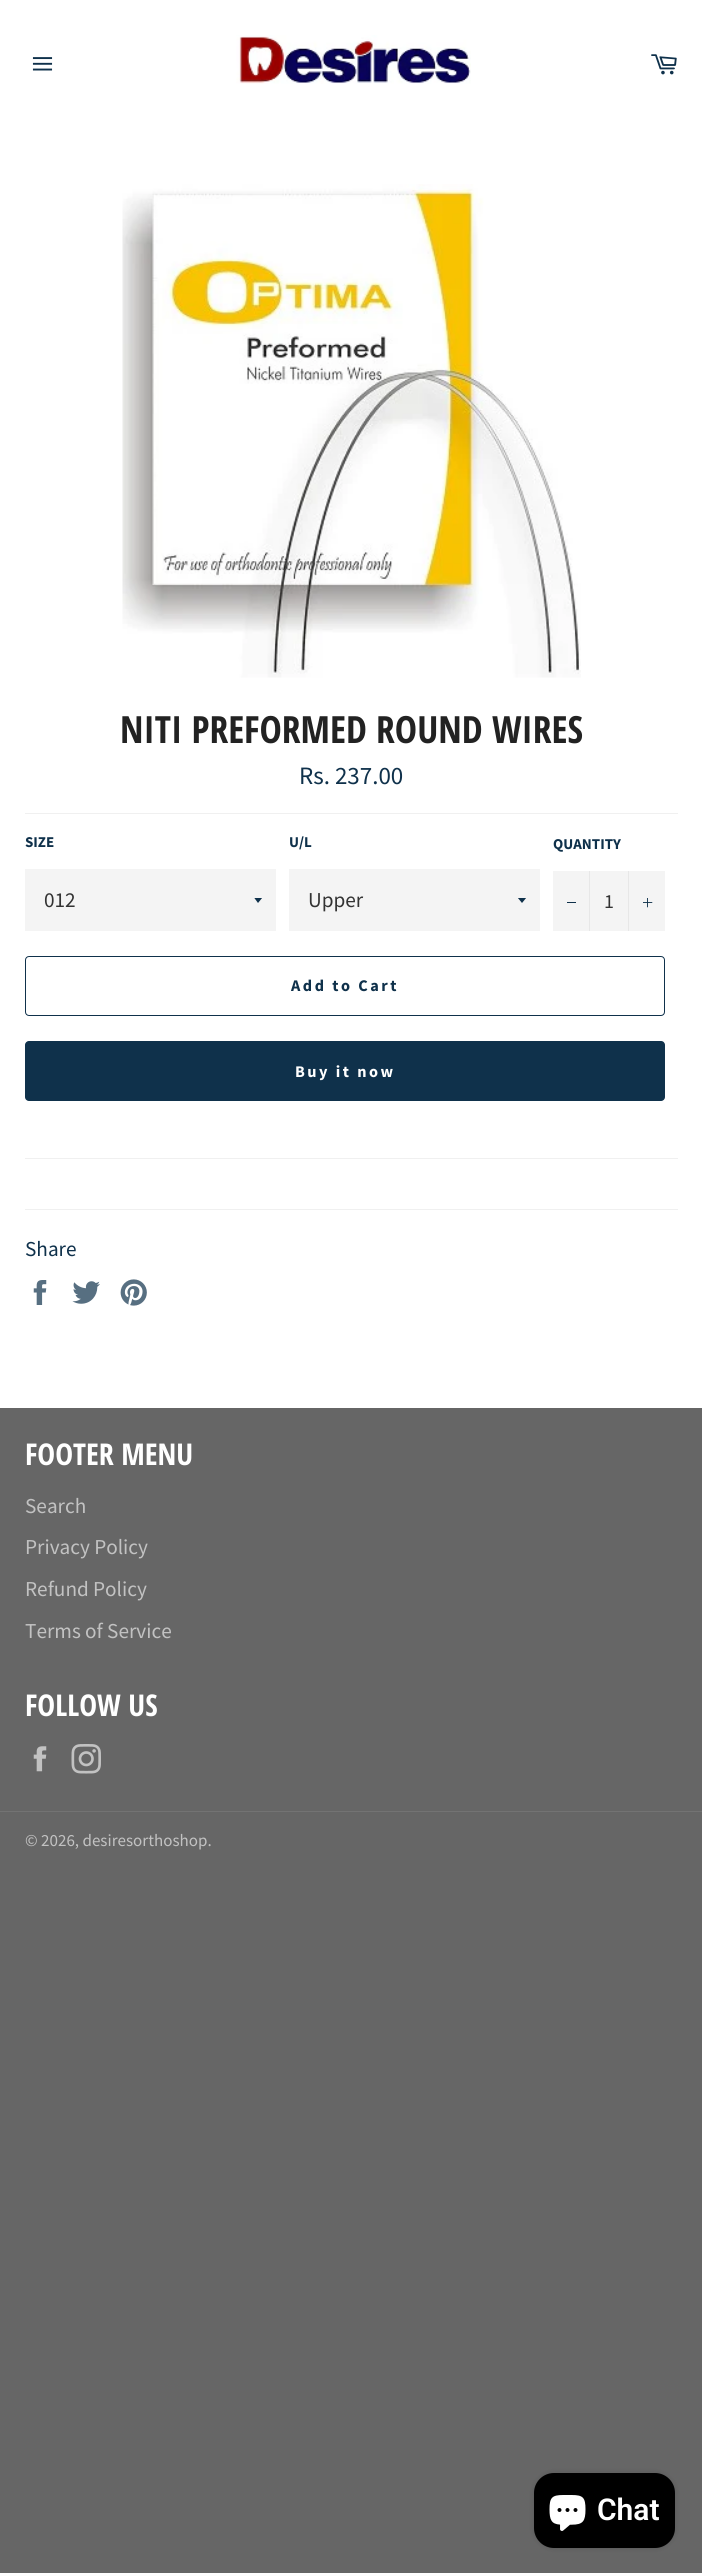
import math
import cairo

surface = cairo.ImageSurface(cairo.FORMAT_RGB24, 702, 2573)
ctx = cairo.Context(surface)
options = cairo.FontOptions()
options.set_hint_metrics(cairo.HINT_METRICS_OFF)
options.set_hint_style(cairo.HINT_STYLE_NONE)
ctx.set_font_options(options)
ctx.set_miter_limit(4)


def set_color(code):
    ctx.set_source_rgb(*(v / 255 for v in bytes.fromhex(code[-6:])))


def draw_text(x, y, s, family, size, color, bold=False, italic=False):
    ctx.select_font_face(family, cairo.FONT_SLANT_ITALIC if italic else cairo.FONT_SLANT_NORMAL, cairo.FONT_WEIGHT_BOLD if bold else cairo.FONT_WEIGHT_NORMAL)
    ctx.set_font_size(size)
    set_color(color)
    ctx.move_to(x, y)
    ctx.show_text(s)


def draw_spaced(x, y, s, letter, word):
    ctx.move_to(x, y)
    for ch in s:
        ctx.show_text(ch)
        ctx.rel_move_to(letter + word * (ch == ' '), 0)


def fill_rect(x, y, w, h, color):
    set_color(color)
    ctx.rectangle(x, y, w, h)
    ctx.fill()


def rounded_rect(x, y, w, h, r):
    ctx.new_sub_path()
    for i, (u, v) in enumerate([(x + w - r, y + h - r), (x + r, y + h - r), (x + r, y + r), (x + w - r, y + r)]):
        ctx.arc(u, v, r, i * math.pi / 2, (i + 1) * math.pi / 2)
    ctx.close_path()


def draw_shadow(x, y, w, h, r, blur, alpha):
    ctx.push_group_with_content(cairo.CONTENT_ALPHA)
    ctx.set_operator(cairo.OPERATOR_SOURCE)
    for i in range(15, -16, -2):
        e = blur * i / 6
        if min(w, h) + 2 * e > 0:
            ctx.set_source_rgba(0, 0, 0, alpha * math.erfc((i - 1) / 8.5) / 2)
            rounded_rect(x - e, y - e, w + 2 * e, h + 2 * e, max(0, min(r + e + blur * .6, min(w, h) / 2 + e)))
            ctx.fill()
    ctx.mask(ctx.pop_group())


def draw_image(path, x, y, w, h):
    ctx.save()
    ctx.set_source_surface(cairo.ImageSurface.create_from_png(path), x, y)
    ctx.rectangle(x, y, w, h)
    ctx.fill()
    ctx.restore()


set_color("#666666")
ctx.paint()
fill_rect(0, 0, 702, 1408, "#ffffff")
draw_image("assets/img1.png", 32, 57, 21, 14)
draw_image("assets/img2.png", 236, 35, 235, 49)
draw_image("assets/img3.png", 651, 54, 26, 21)
draw_image("assets/img4.png", 122, 184, 459, 494)
draw_text(120, 743, "NITI PREFORMED ROUND WIRES", "Open Sans Condensed", 37.5, "#222222", bold=True)
draw_text(299, 784, "Rs. 237.00", "Source Sans Pro", 25, "#0f314b")
fill_rect(25, 813, 653, 1, "#f0f0f0")
draw_text(25, 847, "SIZE", "Source Sans Pro", 15, "#0f314b", bold=True)
fill_rect(25, 869, 251, 62, "#f4f4f4")
ctx.save()
ctx.rectangle(254, 898, 10, 6)
ctx.clip()
set_color("#0f314b")
ctx.new_path()
ctx.move_to(254, 897.5)
ctx.line_to(258, 903)
ctx.line_to(262.5, 897.5)
ctx.close_path()
ctx.fill()
ctx.restore()
draw_text(44, 907, "012", "Source Sans Pro", 21.25, "#333333")
draw_text(289, 847, "U/L", "Source Sans Pro", 15, "#0f314b", bold=True)
fill_rect(289, 869, 251, 62, "#f4f4f4")
ctx.save()
ctx.rectangle(518, 898, 10, 6)
ctx.clip()
set_color("#0f314b")
ctx.new_path()
ctx.move_to(517.5, 897.5)
ctx.line_to(522, 903)
ctx.line_to(526.5, 897.5)
ctx.close_path()
ctx.fill()
ctx.restore()
draw_text(308, 907, "Upper", "Source Sans Pro", 21.25, "#333333")
draw_text(553, 849, "QUANTITY", "Source Sans Pro", 15, "#0f314b", bold=True)
fill_rect(553, 871, 112, 60, "#f4f4f4")
fill_rect(589, 871, 1, 60, "#e7e7e7")
fill_rect(567, 902, 9, 1, "#0f314b")
draw_text(604, 908, "1", "Source Sans Pro", 20, "#333333")
fill_rect(628, 871, 1, 60, "#e7e7e7")
draw_image("assets/img5.png", 643, 898, 10, 10)
rounded_rect(25.5, 956.5, 639, 59, 3.5)
set_color("#0f314b")
ctx.set_line_width(1)
ctx.stroke()
ctx.select_font_face("Source Sans Pro", cairo.FONT_SLANT_NORMAL, cairo.FONT_WEIGHT_BOLD)
ctx.set_font_size(16.25)
draw_spaced(291, 991, "Add to Cart", 2.5, 0)
rounded_rect(25, 1041, 640, 60, 4)
ctx.fill()
set_color("#ffffff")
draw_spaced(295, 1077, "Buy it now", 2.5, 0)
fill_rect(25, 1158, 653, 1, "#f0f0f0")
fill_rect(25, 1209, 653, 1, "#f0f0f0")
draw_text(25, 1256, "Share", "Source Sans Pro", 21.25, "#0f314b")
draw_image("assets/img6.png", 33, 1280, 14, 25)
draw_image("assets/img7.png", 72, 1281, 28, 23)
draw_image("assets/img8.png", 120, 1279, 27, 27)
draw_text(25, 1465, "FOOTER MENU", "Open Sans Condensed", 30, "#ffffff", bold=True)
draw_text(25, 1513, "Search", "Source Sans Pro", 21.25, "#c2c2c2")
draw_text(25, 1554, "Privacy Policy", "Source Sans Pro", 21.25, "#c2c2c2")
draw_text(25, 1596, "Refund Policy", "Source Sans Pro", 21.25, "#c2c2c2")
draw_text(25, 1638, "Terms of Service", "Source Sans Pro", 21.25, "#c2c2c2")
draw_text(25, 1716, "FOLLOW US", "Open Sans Condensed", 30, "#ffffff", bold=True)
draw_image("assets/img9.png", 33, 1746, 14, 26)
draw_image("assets/img10.png", 71, 1744, 30, 30)
fill_rect(0, 1811, 702, 1, "#737373")
draw_text(25, 1846, "© 2026, desiresorthoshop.", "Source Sans Pro", 17, "#c2c2c2")
set_color("#000000")
draw_shadow(534, 2473, 141, 75, 20, 3, 0.15)
set_color("#000000")
rounded_rect(534, 2473, 141, 75, 20)
ctx.fill()
draw_image("assets/img11.png", 549, 2495, 37, 36)
draw_text(597, 2520, "Chat", "Roboto SemiBold", 30, "#ffffff")
surface.write_to_png("output.png")
